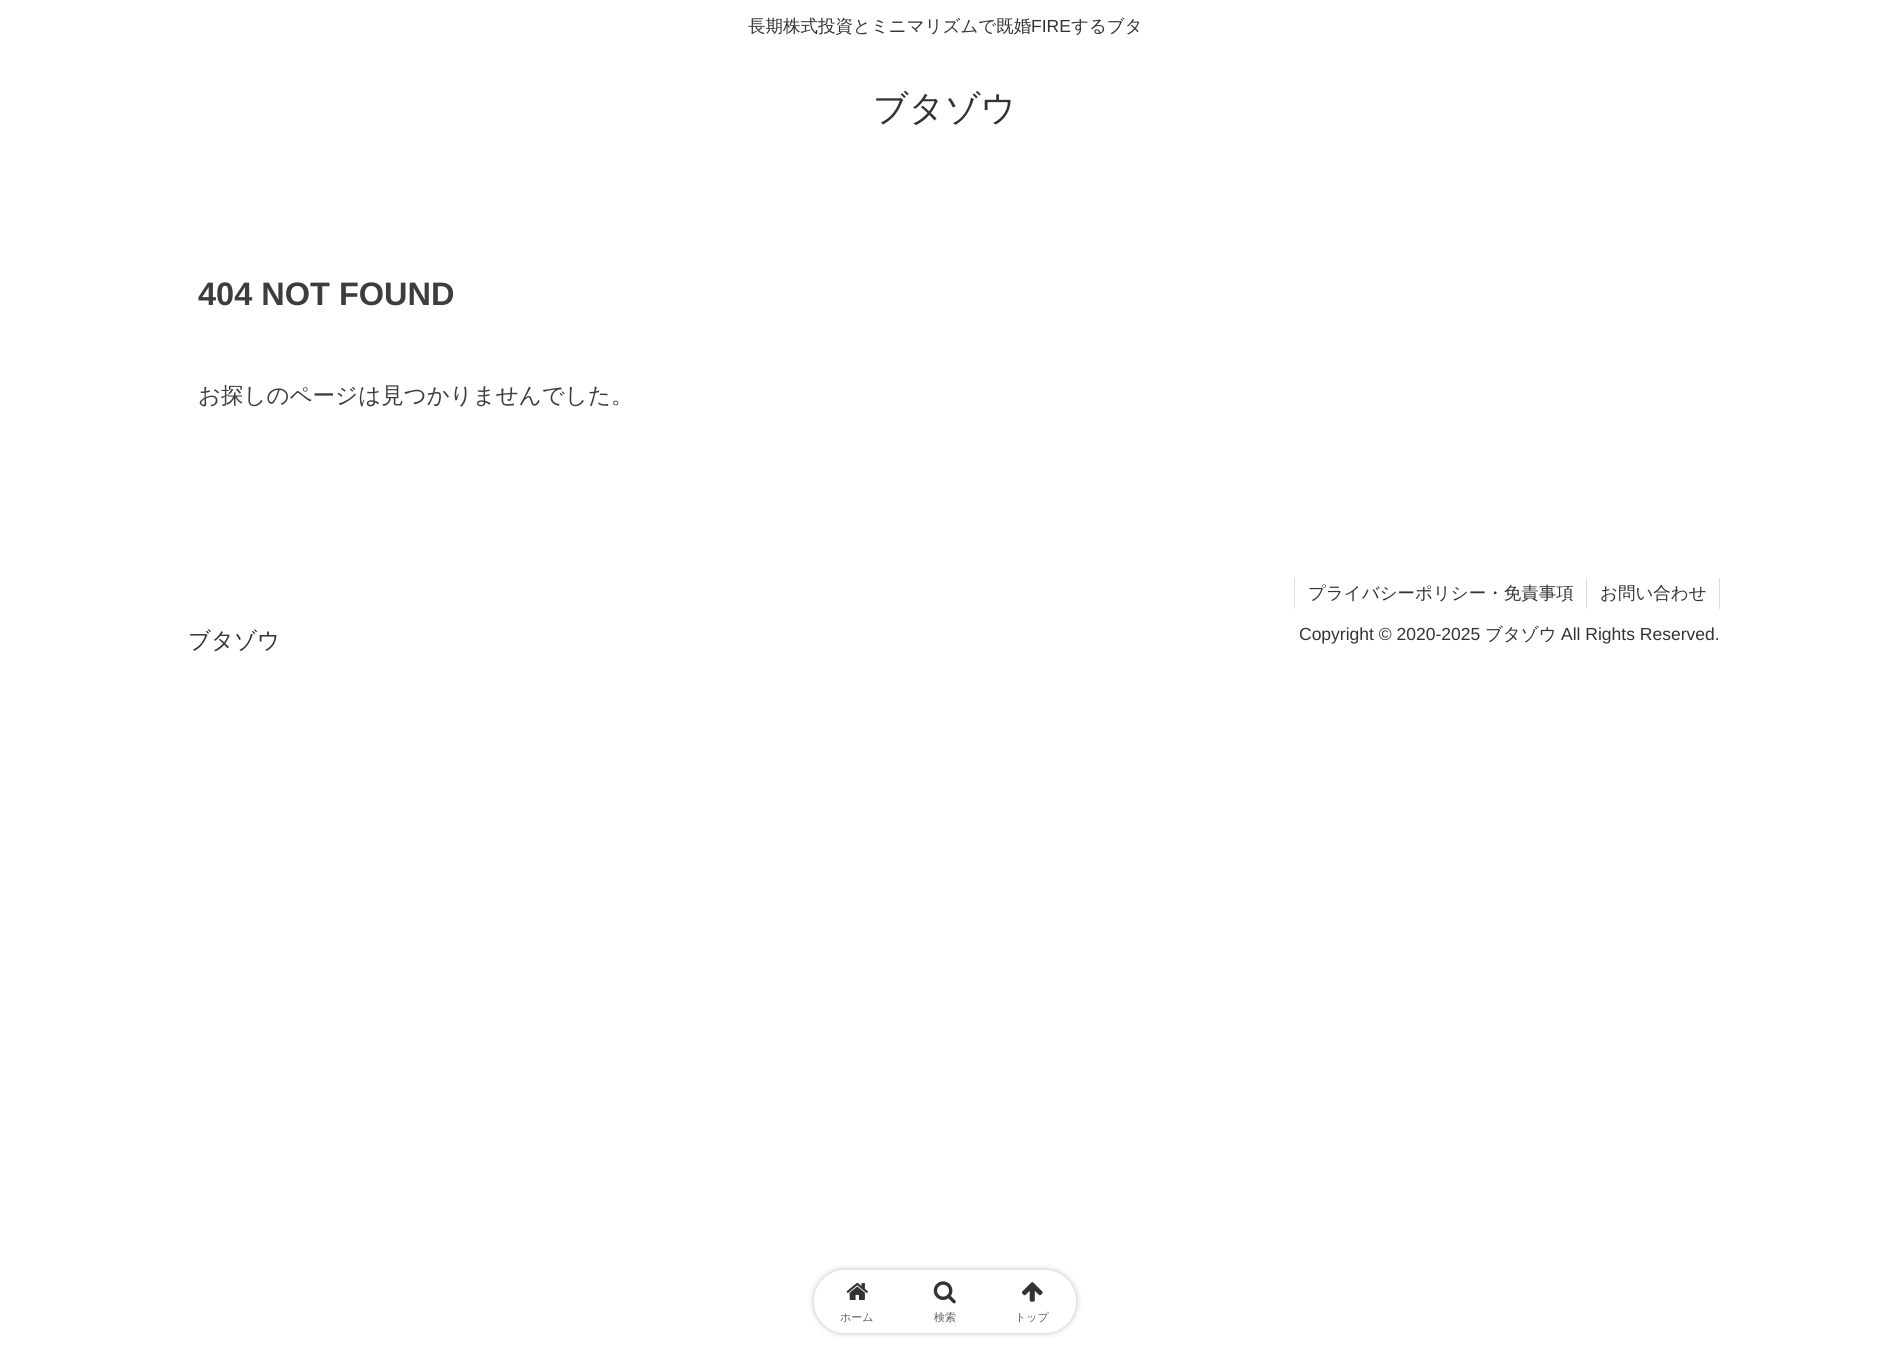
import math
import cairo

surface = cairo.ImageSurface(cairo.FORMAT_RGB24, 1890, 1345)
ctx = cairo.Context(surface)
options = cairo.FontOptions()
options.set_hint_metrics(cairo.HINT_METRICS_OFF)
options.set_hint_style(cairo.HINT_STYLE_NONE)
ctx.set_font_options(options)
ctx.set_miter_limit(4)


def set_color(code):
    ctx.set_source_rgb(*(v / 255 for v in bytes.fromhex(code[-6:])))


def draw_text(x, y, s, family, size, color, bold=False, italic=False):
    ctx.select_font_face(family, cairo.FONT_SLANT_ITALIC if italic else cairo.FONT_SLANT_NORMAL, cairo.FONT_WEIGHT_BOLD if bold else cairo.FONT_WEIGHT_NORMAL)
    ctx.set_font_size(size)
    set_color(color)
    ctx.move_to(x, y)
    ctx.show_text(s)


def fill_rect(x, y, w, h, color):
    set_color(color)
    ctx.rectangle(x, y, w, h)
    ctx.fill()


def rounded_rect(x, y, w, h, r):
    ctx.new_sub_path()
    for i, (u, v) in enumerate([(x + w - r, y + h - r), (x + r, y + h - r), (x + r, y + r), (x + w - r, y + r)]):
        ctx.arc(u, v, r, i * math.pi / 2, (i + 1) * math.pi / 2)
    ctx.close_path()


def draw_shadow(x, y, w, h, r, blur, alpha):
    ctx.push_group_with_content(cairo.CONTENT_ALPHA)
    ctx.set_operator(cairo.OPERATOR_SOURCE)
    for i in range(15, -16, -2):
        e = blur * i / 6
        if min(w, h) + 2 * e > 0:
            ctx.set_source_rgba(0, 0, 0, alpha * math.erfc((i - 1) / 8.5) / 2)
            rounded_rect(x - e, y - e, w + 2 * e, h + 2 * e, max(0, min(r + e + blur * .6, min(w, h) / 2 + e)))
            ctx.fill()
    ctx.mask(ctx.pop_group())


def draw_image(path, x, y, w, h):
    ctx.save()
    ctx.set_source_surface(cairo.ImageSurface.create_from_png(path), x, y)
    ctx.rectangle(x, y, w, h)
    ctx.fill()
    ctx.restore()


set_color("#ffffff")
ctx.paint()
draw_text(748, 32, "長期株式投資とミニマリズムで既婚", "WenQuanYi Zen Hei Medium", 17.5, "#333333")
draw_text(1031, 32, "FIRE", "Liberation Sans", 17.5, "#333333")
draw_text(1071, 32, "するブタ", "WenQuanYi Zen Hei Medium", 17.5, "#333333")
draw_text(873, 120, "ブタゾウ", "WenQuanYi Zen Hei Medium", 35, "#333333")
draw_text(198, 305, "404 NOT FOUND", "Liberation Sans", 32.5, "#3d3d3d", bold=True)
draw_text(198, 403, "お探しのページは見つかりませんでした。", "WenQuanYi Zen Hei Medium", 22.5, "#3d3d3d")
draw_text(188, 648, "ブタゾウ", "WenQuanYi Zen Hei Medium", 22.5, "#333333")
fill_rect(1294, 578, 1, 31, "#dddddd")
draw_text(1308, 599, "プライバシーポリシー・免責事項", "WenQuanYi Zen Hei Medium", 17.5, "#333333")
fill_rect(1719, 578, 1, 31, "#dddddd")
fill_rect(1586, 578, 1, 31, "#dddddd")
draw_text(1600, 599, "お問い合わせ", "WenQuanYi Zen Hei Medium", 17.5, "#333333")
draw_text(1299, 640, "Copyright © 2020-2025", "Liberation Sans", 17.5, "#333333")
draw_text(1485, 640, "ブタゾウ", "WenQuanYi Zen Hei Medium", 17.5, "#333333")
draw_text(1561, 640, "All Rights Reserved.", "Liberation Sans", 17.5, "#333333")
ctx.save()
ctx.set_fill_rule(cairo.FILL_RULE_EVEN_ODD)
ctx.new_path()
ctx.move_to(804, 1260)
ctx.line_to(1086, 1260)
ctx.line_to(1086, 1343)
ctx.line_to(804, 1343)
ctx.close_path()
ctx.move_to(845.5, 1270)
ctx.line_to(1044.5, 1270)
ctx.curve_to(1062, 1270, 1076, 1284, 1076, 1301.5)
ctx.curve_to(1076, 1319, 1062, 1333, 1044.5, 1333)
ctx.line_to(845.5, 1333)
ctx.curve_to(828, 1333, 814, 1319, 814, 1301.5)
ctx.curve_to(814, 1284, 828, 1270, 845.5, 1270)
ctx.close_path()
ctx.clip()
set_color("#363636")
draw_shadow(814, 1270, 262, 63, 31.5, 3, 0.35)
ctx.restore()
ctx.set_source_rgba(1, 1, 1, 0.8)
rounded_rect(814, 1270, 262, 63, 31.5)
ctx.fill()
draw_image("assets/img1.png", 846, 1283, 22, 17)
draw_text(840, 1321, "ホーム", "WenQuanYi Zen Hei Medium", 11, "#5c5c5c")
draw_image("assets/img2.png", 933, 1281, 23, 23)
draw_text(934, 1321, "検索", "WenQuanYi Zen Hei Medium", 11, "#5c5c5c")
draw_image("assets/img3.png", 1022, 1282, 21, 20)
draw_text(1015, 1321, "トップ", "WenQuanYi Zen Hei Medium", 11, "#5c5c5c")
surface.write_to_png("output.png")
